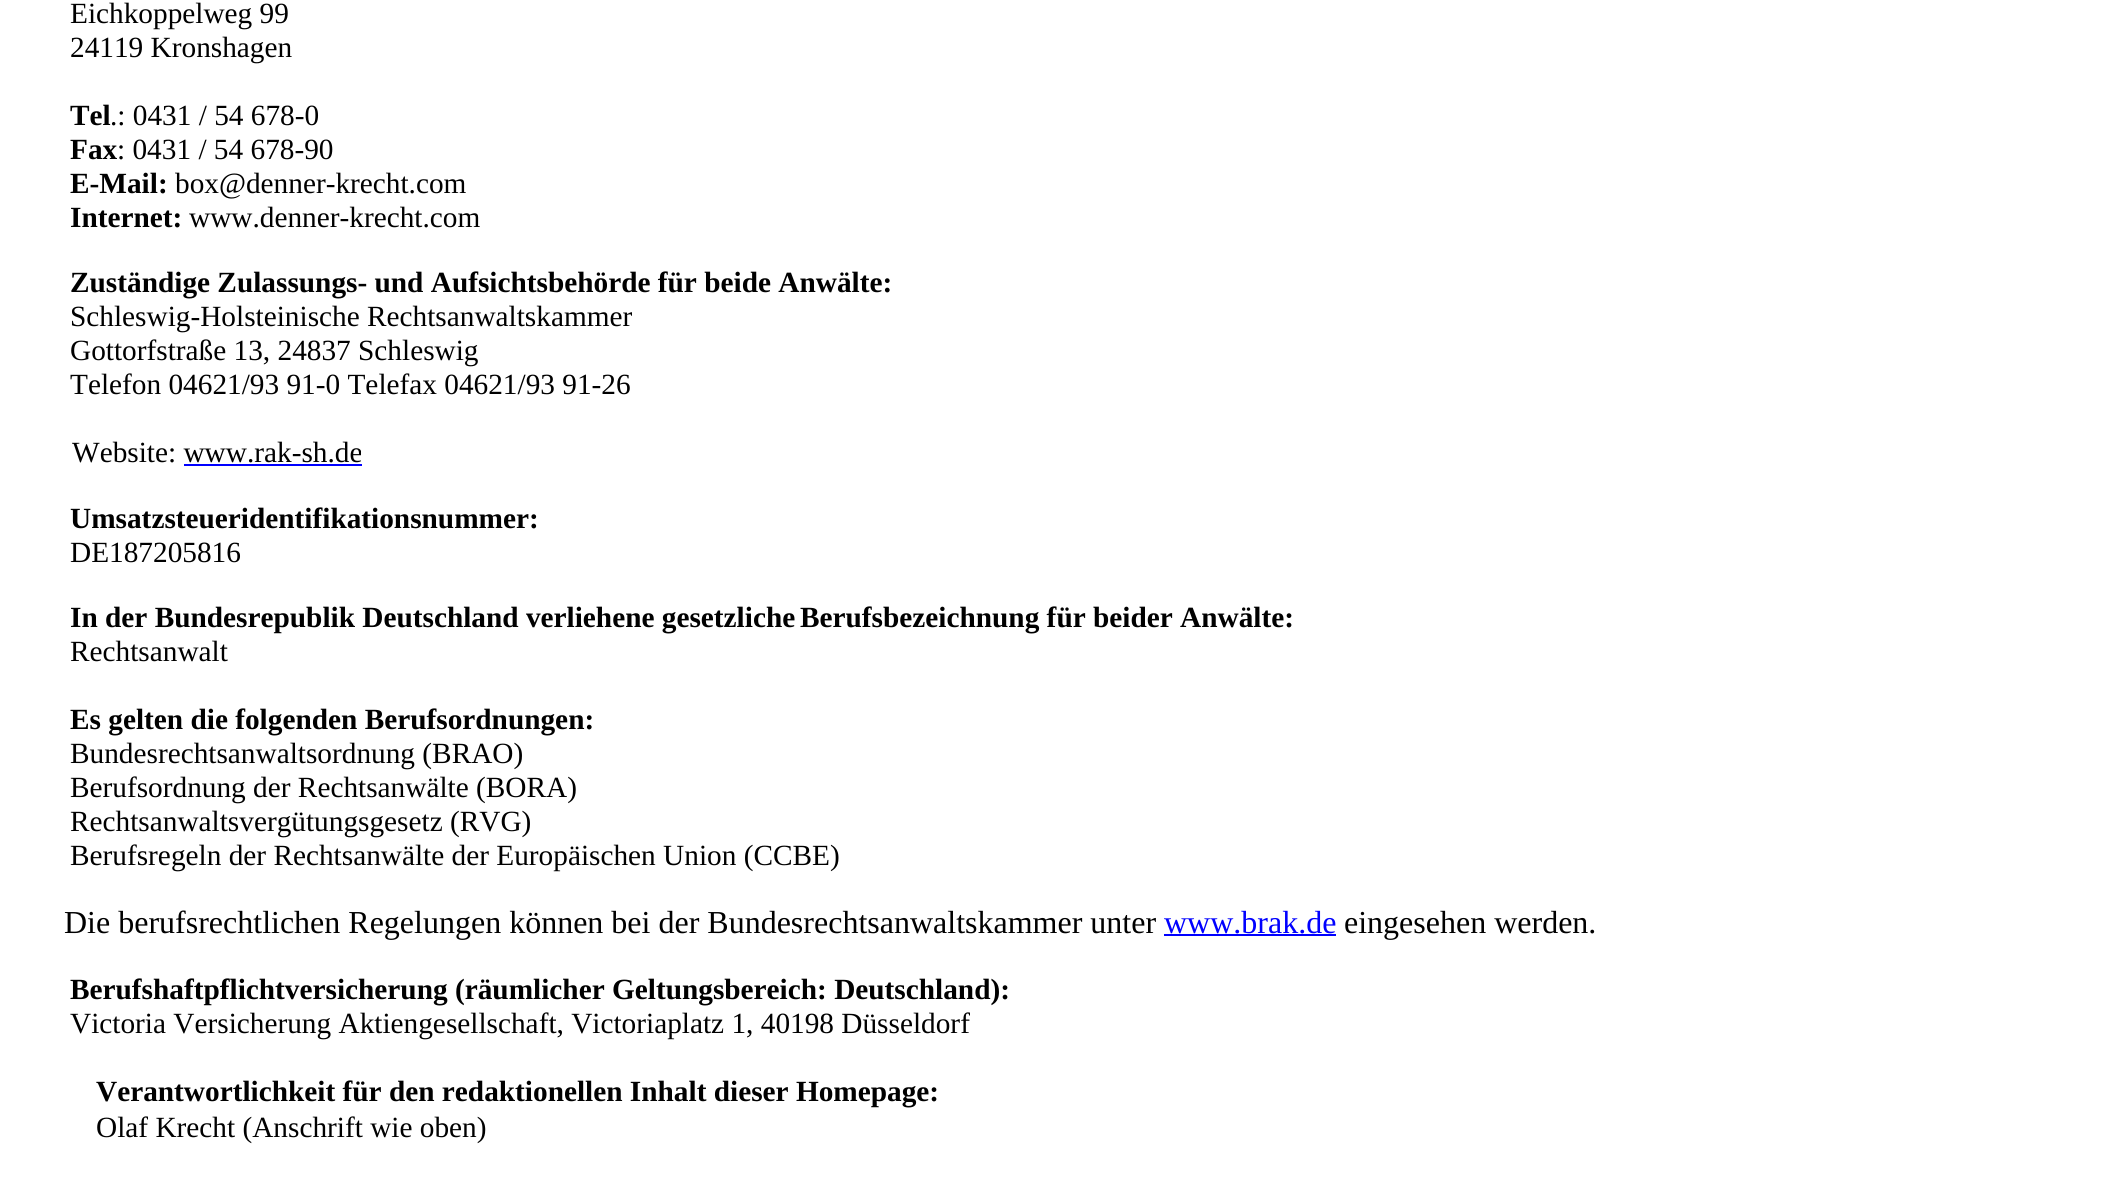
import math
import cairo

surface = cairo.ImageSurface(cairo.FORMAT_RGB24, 2103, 1186)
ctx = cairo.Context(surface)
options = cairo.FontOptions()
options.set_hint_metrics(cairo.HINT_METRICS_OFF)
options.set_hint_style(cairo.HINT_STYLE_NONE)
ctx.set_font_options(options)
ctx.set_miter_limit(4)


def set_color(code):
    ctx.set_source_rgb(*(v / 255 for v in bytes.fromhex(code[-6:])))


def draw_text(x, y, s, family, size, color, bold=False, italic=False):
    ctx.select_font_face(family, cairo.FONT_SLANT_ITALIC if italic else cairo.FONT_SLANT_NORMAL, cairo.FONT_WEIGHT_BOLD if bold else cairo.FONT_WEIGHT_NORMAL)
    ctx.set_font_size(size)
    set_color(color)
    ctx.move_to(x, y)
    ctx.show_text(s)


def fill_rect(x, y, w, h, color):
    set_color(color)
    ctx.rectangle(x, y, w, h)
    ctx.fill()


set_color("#ffffff")
ctx.paint()
draw_text(70, 23, "Eichkoppelweg 99", "Liberation Serif", 29.3, "#000000")
draw_text(70, 57, "24119 Kronshagen", "Liberation Serif", 29.3, "#000000")
draw_text(70, 125, "Tel", "Liberation Serif", 29.3, "#000000", bold=True)
draw_text(110, 125, ".: 0431 / 54 678-0", "Liberation Serif", 29.3, "#000000")
draw_text(70, 159, "Fax", "Liberation Serif", 29.3, "#000000", bold=True)
draw_text(117, 159, ": 0431 / 54 678-90", "Liberation Serif", 29.3, "#000000")
draw_text(70, 193, "E-Mail:", "Liberation Serif", 29.3, "#000000", bold=True)
draw_text(175, 193, "box@denner-krecht.com", "Liberation Serif", 29.3, "#000000")
draw_text(70, 227, "Internet:", "Liberation Serif", 29.3, "#000000", bold=True)
draw_text(189, 227, "www.denner-krecht.com", "Liberation Serif", 29.3, "#000000")
draw_text(70, 292, "Zuständige Zulassungs- und Aufsichtsbehörde für beide Anwälte:", "Liberation Serif", 29.3, "#000000", bold=True)
draw_text(70, 326, "Schleswig-Holsteinische Rechtsanwaltskammer", "Liberation Serif", 29.3, "#000000")
draw_text(70, 360, "Gottorfstraße 13, 24837 Schleswig", "Liberation Serif", 29.3, "#000000")
draw_text(70, 394, "Telefon 04621/93 91-0 Telefax 04621/93 91-26", "Liberation Serif", 29.3, "#000000")
draw_text(72, 462, "Website: www.rak-sh.de", "Liberation Serif", 29.3, "#000000")
fill_rect(184, 464, 178, 2, "#0000ff")
draw_text(70, 528, "Umsatzsteueridentifikationsnummer:", "Liberation Serif", 29.3, "#000000", bold=True)
draw_text(70, 562, "DE187205816", "Liberation Serif", 29.3, "#000000")
draw_text(70, 627, "In der Bundesrepublik Deutschland verliehene gesetzliche", "Liberation Serif", 29.3, "#000000", bold=True)
draw_text(800, 627, "Berufsbezeichnung für beider Anwälte:", "Liberation Serif", 29.3, "#000000", bold=True)
draw_text(70, 661, "Rechtsanwalt", "Liberation Serif", 29.3, "#000000")
draw_text(70, 729, "Es gelten die folgenden Berufsordnungen:", "Liberation Serif", 29.3, "#000000", bold=True)
draw_text(70, 763, "Bundesrechtsanwaltsordnung (BRAO)", "Liberation Serif", 29.3, "#000000")
draw_text(70, 797, "Berufsordnung der Rechtsanwälte (BORA)", "Liberation Serif", 29.3, "#000000")
draw_text(70, 831, "Rechtsanwaltsvergütungsgesetz (RVG)", "Liberation Serif", 29.3, "#000000")
draw_text(70, 865, "Berufsregeln der Rechtsanwälte der Europäischen Union (CCBE)", "Liberation Serif", 29.3, "#000000")
draw_text(64, 933, "Die berufsrechtlichen Regelungen können bei der Bundesrechtsanwaltskammer unter", "Liberation Serif", 32, "#000000")
draw_text(1164, 933, "www.brak.de", "Liberation Serif", 32, "#0000ff")
fill_rect(1164, 934, 172, 2, "#0000ff")
draw_text(1344, 933, "eingesehen werden.", "Liberation Serif", 32, "#000000")
draw_text(70, 999, "Berufshaftpflichtversicherung (räumlicher Geltungsbereich: Deutschland):", "Liberation Serif", 29.3, "#000000", bold=True)
draw_text(70, 1033, "Victoria Versicherung Aktiengesellschaft, Victoriaplatz 1, 40198 Düsseldorf", "Liberation Serif", 29.3, "#000000")
draw_text(96, 1101, "Verantwortlichkeit für den redaktionellen Inhalt dieser Homepage:", "Liberation Serif", 29.3, "#000000", bold=True)
draw_text(96, 1137, "Olaf Krecht (Anschrift wie oben)", "Liberation Serif", 29.3, "#000000")
surface.write_to_png("output.png")
